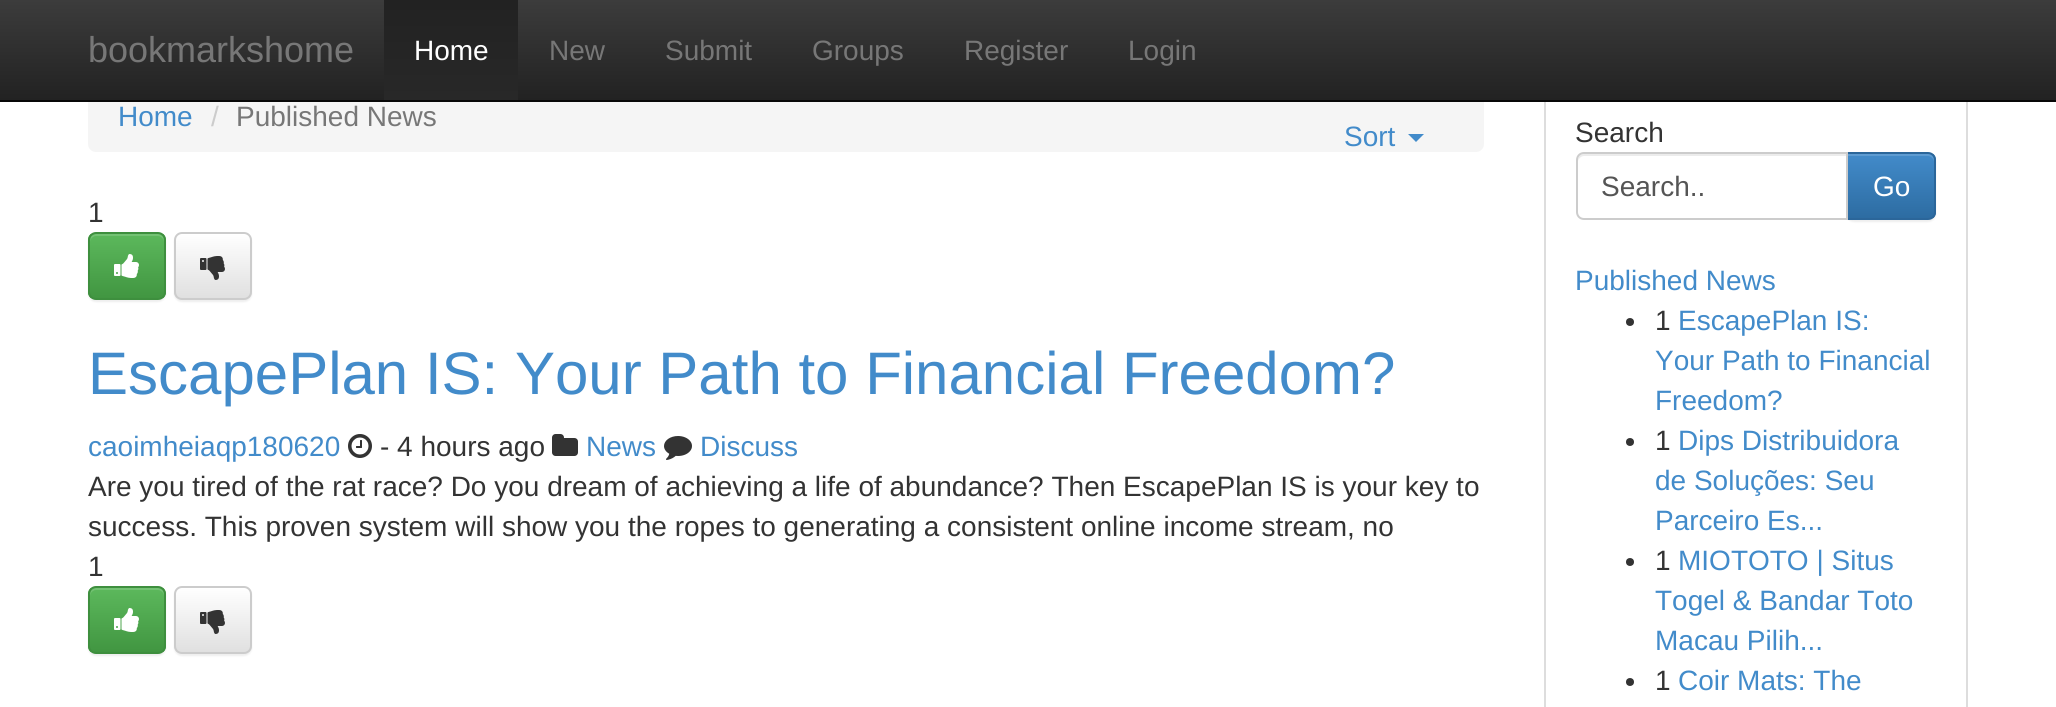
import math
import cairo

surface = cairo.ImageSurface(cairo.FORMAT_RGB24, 2056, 707)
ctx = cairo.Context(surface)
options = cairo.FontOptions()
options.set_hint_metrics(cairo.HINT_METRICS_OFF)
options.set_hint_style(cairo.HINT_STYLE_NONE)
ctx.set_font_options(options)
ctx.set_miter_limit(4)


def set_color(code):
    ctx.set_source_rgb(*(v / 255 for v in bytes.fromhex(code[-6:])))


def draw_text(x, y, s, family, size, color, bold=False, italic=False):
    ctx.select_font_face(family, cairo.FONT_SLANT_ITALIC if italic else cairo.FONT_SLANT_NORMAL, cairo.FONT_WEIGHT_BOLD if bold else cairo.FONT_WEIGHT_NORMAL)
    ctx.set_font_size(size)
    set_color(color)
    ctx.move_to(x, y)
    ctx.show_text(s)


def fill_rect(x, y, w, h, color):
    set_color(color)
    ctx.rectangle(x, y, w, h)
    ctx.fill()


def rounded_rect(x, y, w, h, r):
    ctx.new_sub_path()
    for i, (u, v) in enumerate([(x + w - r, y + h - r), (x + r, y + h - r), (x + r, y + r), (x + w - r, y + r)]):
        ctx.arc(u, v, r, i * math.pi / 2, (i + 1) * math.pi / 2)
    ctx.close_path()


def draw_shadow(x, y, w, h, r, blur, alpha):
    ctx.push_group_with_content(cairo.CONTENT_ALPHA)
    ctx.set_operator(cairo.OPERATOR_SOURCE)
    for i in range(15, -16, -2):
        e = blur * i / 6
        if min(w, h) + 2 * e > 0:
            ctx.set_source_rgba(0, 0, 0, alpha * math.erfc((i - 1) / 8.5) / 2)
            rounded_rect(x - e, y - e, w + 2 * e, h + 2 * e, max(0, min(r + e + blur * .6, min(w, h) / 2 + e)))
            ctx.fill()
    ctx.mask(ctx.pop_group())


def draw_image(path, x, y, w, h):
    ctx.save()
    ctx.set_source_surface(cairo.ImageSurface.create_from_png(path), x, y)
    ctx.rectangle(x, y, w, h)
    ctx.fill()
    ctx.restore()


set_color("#ffffff")
ctx.paint()
set_color("#f5f5f5")
rounded_rect(88, 80, 1396, 72, 8)
ctx.fill()
ctx.rectangle(1545, 81, 422, 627)
set_color("#dddddd")
ctx.stroke()
gradient = cairo.LinearGradient(1028, 0, 1028, 100)
gradient.add_color_stop_rgba(0, 0.235, 0.235, 0.235, 1)
gradient.add_color_stop_rgba(1, 0.133, 0.133, 0.133, 1)
ctx.set_source(gradient)
ctx.rectangle(0, 0, 2056, 100)
ctx.fill()
fill_rect(0, 100, 2056, 2, "#080808")
draw_text(88, 62, "bookmarkshome", "Liberation Sans", 36, "#777777")
gradient = cairo.LinearGradient(451, 0, 451, 100)
gradient.add_color_stop_rgba(0, 0.133, 0.133, 0.133, 1)
gradient.add_color_stop_rgba(1, 0.157, 0.157, 0.157, 1)
ctx.set_source(gradient)
ctx.rectangle(384, 0, 134, 100)
ctx.fill()
draw_text(414, 60, "Home", "Liberation Sans", 28, "#ffffff")
draw_text(549, 60, "New", "Liberation Sans", 28, "#777777")
draw_text(665, 60, "Submit", "Liberation Sans", 28, "#777777")
draw_text(812, 60, "Groups", "Liberation Sans", 28, "#777777")
draw_text(964, 60, "Register", "Liberation Sans", 28, "#777777")
draw_text(1128, 60, "Login", "Liberation Sans", 28, "#777777")
draw_text(118, 126, "Home", "Liberation Sans", 28, "#428bca")
draw_text(211, 126, "/", "Liberation Sans", 28, "#cccccc")
draw_text(236, 126, "Published News", "Liberation Sans", 28, "#777777")
draw_text(1344, 146, "Sort", "Liberation Sans", 28, "#428bca")
ctx.new_path()
ctx.move_to(1408, 134)
ctx.line_to(1424, 134)
ctx.line_to(1416, 142)
ctx.close_path()
ctx.fill()
draw_text(88, 222, "1", "Liberation Sans", 28, "#333333")
set_color("#000000")
draw_shadow(88, 234, 78, 68, 8, 1, 0.07)
ctx.save()
rounded_rect(88, 232, 78, 68, 8)
ctx.clip()
gradient = cairo.LinearGradient(127, 234, 127, 298)
gradient.add_color_stop_rgba(0, 0.361, 0.722, 0.361, 1)
gradient.add_color_stop_rgba(1, 0.255, 0.588, 0.255, 1)
ctx.set_source(gradient)
ctx.rectangle(88, 234, 78, 64)
ctx.fill()
ctx.restore()
set_color("#74c274")
ctx.new_path()
ctx.move_to(96, 236)
ctx.line_to(158, 236)
ctx.curve_to(161, 236, 164, 239, 164, 242)
ctx.curve_to(164, 232, 156, 234, 148, 234)
ctx.line_to(106, 234)
ctx.curve_to(98, 234, 90, 232, 90, 242)
ctx.curve_to(90, 239, 93, 236, 96, 236)
ctx.close_path()
ctx.fill()
rounded_rect(89, 233, 76, 66, 7)
set_color("#3e8f3e")
ctx.stroke()
draw_image("assets/img1.png", 114, 254, 25, 24)
set_color("#000000")
draw_shadow(174, 234, 78, 68, 8, 1, 0.07)
ctx.save()
rounded_rect(174, 232, 78, 68, 8)
ctx.clip()
gradient = cairo.LinearGradient(213, 234, 213, 298)
gradient.add_color_stop_rgba(0, 1, 1, 1, 1)
gradient.add_color_stop_rgba(1, 0.878, 0.878, 0.878, 1)
ctx.set_source(gradient)
ctx.rectangle(174, 234, 78, 64)
ctx.fill()
ctx.restore()
rounded_rect(175, 233, 76, 66, 7)
set_color("#cccccc")
ctx.stroke()
draw_image("assets/img2.png", 200, 256, 25, 24)
draw_text(88, 394, "EscapePlan IS: Your Path to Financial Freedom?", "Liberation Sans", 60, "#428bca")
draw_text(88, 456, "caoimheiaqp180620", "Liberation Sans", 28, "#428bca")
draw_image("assets/img3.png", 348, 434, 24, 24)
draw_text(380, 456, "- 4 hours ago", "Liberation Sans", 28, "#333333")
draw_image("assets/img4.png", 552, 434, 26, 22)
draw_text(586, 456, "News", "Liberation Sans", 28, "#428bca")
draw_image("assets/img5.png", 664, 436, 28, 24)
draw_text(700, 456, "Discuss", "Liberation Sans", 28, "#428bca")
draw_text(88, 496, "Are you tired of the rat race? Do you dream of achieving a life of abundance? Then EscapePlan IS is your key to", "Liberation Sans", 28, "#333333")
draw_text(88, 536, "success. This proven system will show you the ropes to generating a consistent online income stream, no", "Liberation Sans", 28, "#333333")
draw_text(88, 576, "1", "Liberation Sans", 28, "#333333")
set_color("#000000")
draw_shadow(88, 588, 78, 68, 8, 1, 0.07)
ctx.save()
rounded_rect(88, 586, 78, 68, 8)
ctx.clip()
gradient = cairo.LinearGradient(127, 588, 127, 652)
gradient.add_color_stop_rgba(0, 0.361, 0.722, 0.361, 1)
gradient.add_color_stop_rgba(1, 0.255, 0.588, 0.255, 1)
ctx.set_source(gradient)
ctx.rectangle(88, 588, 78, 64)
ctx.fill()
ctx.restore()
set_color("#74c274")
ctx.new_path()
ctx.move_to(96, 590)
ctx.line_to(158, 590)
ctx.curve_to(161, 590, 164, 593, 164, 596)
ctx.curve_to(164, 586, 156, 588, 148, 588)
ctx.line_to(106, 588)
ctx.curve_to(98, 588, 90, 586, 90, 596)
ctx.curve_to(90, 593, 93, 590, 96, 590)
ctx.close_path()
ctx.fill()
rounded_rect(89, 587, 76, 66, 7)
set_color("#3e8f3e")
ctx.stroke()
draw_image("assets/img1.png", 114, 608, 25, 24)
set_color("#000000")
draw_shadow(174, 588, 78, 68, 8, 1, 0.07)
ctx.save()
rounded_rect(174, 586, 78, 68, 8)
ctx.clip()
gradient = cairo.LinearGradient(213, 588, 213, 652)
gradient.add_color_stop_rgba(0, 1, 1, 1, 1)
gradient.add_color_stop_rgba(1, 0.878, 0.878, 0.878, 1)
ctx.set_source(gradient)
ctx.rectangle(174, 588, 78, 64)
ctx.fill()
ctx.restore()
rounded_rect(175, 587, 76, 66, 7)
set_color("#cccccc")
ctx.stroke()
draw_image("assets/img2.png", 200, 610, 25, 24)
draw_text(1575, 142, "Search", "Liberation Sans", 28, "#333333")
set_color("#000000")
draw_shadow(1846, 154, 90, 68, 8, 1, 0.07)
ctx.save()
ctx.new_path()
ctx.move_to(1846, 152)
ctx.line_to(1928, 152)
ctx.curve_to(1932.5, 152, 1936, 155.5, 1936, 160)
ctx.line_to(1936, 212)
ctx.curve_to(1936, 216.5, 1932.5, 220, 1928, 220)
ctx.line_to(1846, 220)
ctx.close_path()
ctx.clip()
gradient = cairo.LinearGradient(1891, 154, 1891, 218)
gradient.add_color_stop_rgba(0, 0.259, 0.545, 0.792, 1)
gradient.add_color_stop_rgba(1, 0.176, 0.424, 0.635, 1)
ctx.set_source(gradient)
ctx.rectangle(1848, 154, 88, 64)
ctx.fill()
ctx.restore()
ctx.set_source_rgba(1, 1, 1, 0.15)
ctx.new_path()
ctx.move_to(1848, 156)
ctx.line_to(1928, 156)
ctx.curve_to(1931, 156, 1934, 159, 1934, 162)
ctx.line_to(1934, 160)
ctx.curve_to(1934, 157, 1931, 154, 1928, 154)
ctx.line_to(1848, 154)
ctx.close_path()
ctx.fill()
ctx.new_path()
ctx.move_to(1847, 153)
ctx.line_to(1928, 153)
ctx.curve_to(1932, 153, 1935, 156, 1935, 160)
ctx.line_to(1935, 212)
ctx.curve_to(1935, 216, 1932, 219, 1928, 219)
ctx.line_to(1847, 219)
ctx.close_path()
set_color("#2b669a")
ctx.stroke()
set_color("#ffffff")
ctx.new_path()
ctx.move_to(1584, 152)
ctx.line_to(1848, 152)
ctx.line_to(1848, 220)
ctx.line_to(1584, 220)
ctx.curve_to(1579.5, 220, 1576, 216.5, 1576, 212)
ctx.line_to(1576, 160)
ctx.curve_to(1576, 155.5, 1579.5, 152, 1584, 152)
ctx.close_path()
ctx.fill()
set_color("#ececec")
ctx.new_path()
ctx.move_to(1584, 156)
ctx.line_to(1846, 156)
ctx.line_to(1846, 154)
ctx.line_to(1584, 154)
ctx.curve_to(1579, 154, 1578, 158, 1578, 162)
ctx.curve_to(1578, 159, 1581, 156, 1584, 156)
ctx.close_path()
ctx.fill()
ctx.new_path()
ctx.move_to(1584, 153)
ctx.line_to(1847, 153)
ctx.line_to(1847, 219)
ctx.line_to(1584, 219)
ctx.curve_to(1580, 219, 1577, 216, 1577, 212)
ctx.line_to(1577, 160)
ctx.curve_to(1577, 156, 1580, 153, 1584, 153)
ctx.close_path()
set_color("#cccccc")
ctx.stroke()
draw_text(1601, 196, "Search..", "Liberation Sans", 28, "#555555")
draw_text(1873, 196, "Go", "Liberation Sans", 28, "#ffffff")
draw_text(1575, 290, "Published News", "Liberation Sans", 28, "#428bca")
set_color("#333333")
ctx.new_path()
ctx.arc(1630, 322, 4, 0, 2 * math.pi)
ctx.fill()
draw_text(1655, 330, "1", "Liberation Sans", 28, "#333333")
draw_text(1678, 330, "EscapePlan IS:", "Liberation Sans", 28, "#428bca")
draw_text(1655, 370, "Your Path to Financial", "Liberation Sans", 28, "#428bca")
draw_text(1655, 410, "Freedom?", "Liberation Sans", 28, "#428bca")
set_color("#333333")
ctx.new_path()
ctx.arc(1630, 442, 4, 0, 2 * math.pi)
ctx.fill()
draw_text(1655, 450, "1", "Liberation Sans", 28, "#333333")
draw_text(1678, 450, "Dips Distribuidora", "Liberation Sans", 28, "#428bca")
draw_text(1655, 490, "de Soluções: Seu", "Liberation Sans", 28, "#428bca")
draw_text(1655, 530, "Parceiro Es...", "Liberation Sans", 28, "#428bca")
set_color("#333333")
ctx.new_path()
ctx.arc(1630, 562, 4, 0, 2 * math.pi)
ctx.fill()
draw_text(1655, 570, "1", "Liberation Sans", 28, "#333333")
draw_text(1678, 570, "MIOTOTO | Situs", "Liberation Sans", 28, "#428bca")
draw_text(1655, 610, "Togel & Bandar Toto", "Liberation Sans", 28, "#428bca")
draw_text(1655, 650, "Macau Pilih...", "Liberation Sans", 28, "#428bca")
set_color("#333333")
ctx.new_path()
ctx.arc(1630, 682, 4, 0, 2 * math.pi)
ctx.fill()
draw_text(1655, 690, "1", "Liberation Sans", 28, "#333333")
draw_text(1678, 690, "Coir Mats: The", "Liberation Sans", 28, "#428bca")
surface.write_to_png("output.png")
